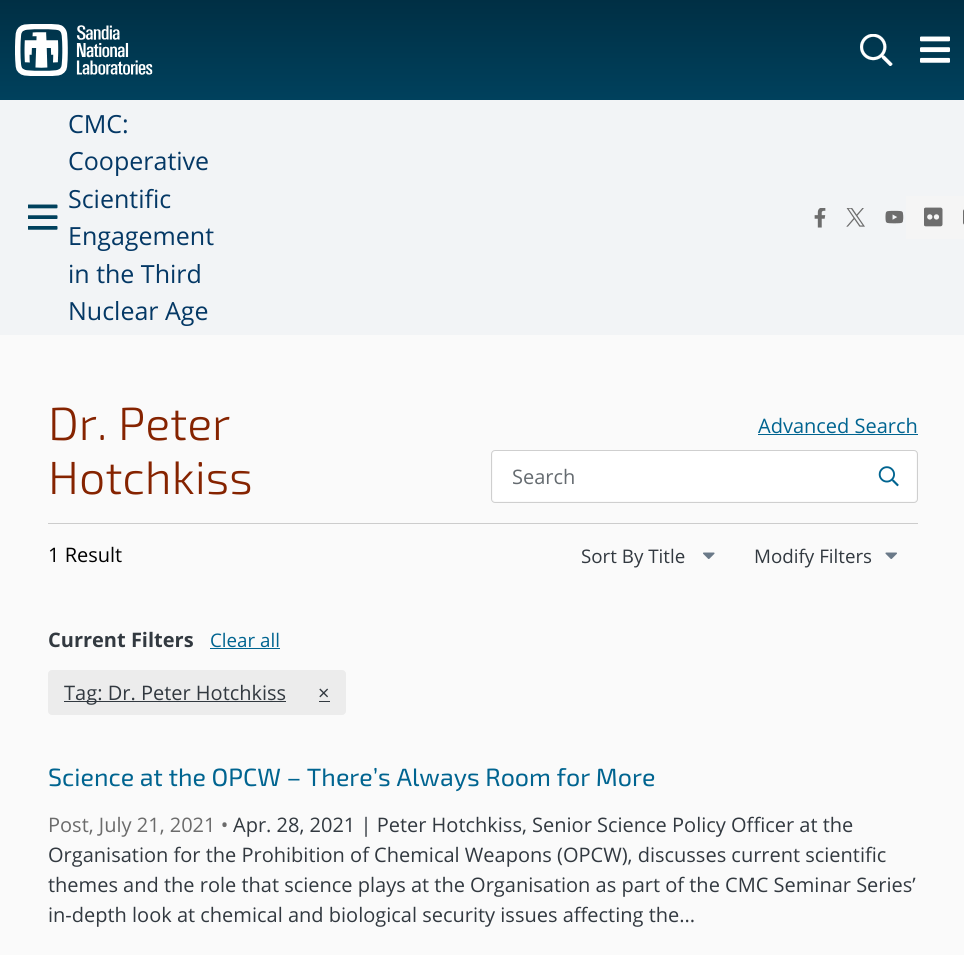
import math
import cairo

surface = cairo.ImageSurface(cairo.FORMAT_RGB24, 964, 955)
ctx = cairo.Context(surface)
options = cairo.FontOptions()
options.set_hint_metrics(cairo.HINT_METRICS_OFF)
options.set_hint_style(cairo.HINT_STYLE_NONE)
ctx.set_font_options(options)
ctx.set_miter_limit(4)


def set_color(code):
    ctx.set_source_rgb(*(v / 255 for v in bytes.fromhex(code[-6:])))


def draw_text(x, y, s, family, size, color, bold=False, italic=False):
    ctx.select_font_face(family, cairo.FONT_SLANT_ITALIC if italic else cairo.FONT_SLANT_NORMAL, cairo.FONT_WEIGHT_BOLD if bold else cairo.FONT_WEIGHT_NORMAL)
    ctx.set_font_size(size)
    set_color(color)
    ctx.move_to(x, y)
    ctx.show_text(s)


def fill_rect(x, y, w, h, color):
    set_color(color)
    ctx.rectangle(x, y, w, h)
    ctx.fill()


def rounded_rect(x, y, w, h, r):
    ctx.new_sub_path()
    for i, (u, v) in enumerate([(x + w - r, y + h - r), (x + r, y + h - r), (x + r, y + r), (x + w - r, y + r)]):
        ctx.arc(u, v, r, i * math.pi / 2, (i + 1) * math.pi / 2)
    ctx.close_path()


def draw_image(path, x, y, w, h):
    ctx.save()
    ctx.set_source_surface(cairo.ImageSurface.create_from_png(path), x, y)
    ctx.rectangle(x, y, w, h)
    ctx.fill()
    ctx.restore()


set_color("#fafafa")
ctx.paint()
gradient = cairo.LinearGradient(483, 0, 483, 100)
gradient.add_color_stop_rgba(0, 0, 0.184, 0.267, 1)
gradient.add_color_stop_rgba(1, 0, 0.255, 0.365, 1)
ctx.set_source(gradient)
ctx.rectangle(0, 0, 964, 100)
ctx.fill()
draw_image("assets/img1.png", 15, 24, 138, 52)
draw_image("assets/img2.png", 860, 34, 33, 32)
draw_image("assets/img3.png", 920, 36, 30, 27)
fill_rect(0, 100, 964, 235, "#f2f4f6")
draw_image("assets/img4.png", 28, 204, 30, 26)
draw_text(68, 133, "CMC:", "Open Sans", 25, "#043865")
draw_text(68, 170, "Cooperative", "Open Sans", 25, "#043865")
draw_text(68, 208, "Scientific", "Open Sans", 25, "#043865")
draw_text(68, 245, "Engagement", "Open Sans", 25, "#043865")
draw_text(68, 283, "in the Third", "Open Sans", 25, "#043865")
draw_text(68, 320, "Nuclear Age", "Open Sans", 25, "#043865")
fill_rect(906, 196, 58, 43, "#f5f5f5")
draw_image("assets/img5.png", 814, 208, 12, 20)
draw_image("assets/img6.png", 846, 208, 19, 19)
draw_image("assets/img7.png", 885, 210, 19, 14)
draw_image("assets/img8.png", 924, 207, 19, 20)
draw_image("assets/img9.png", 963, 209, 1, 16)
fill_rect(48, 523, 870, 1, "#cccccc")
draw_text(48, 440, "Dr. Peter", "Exo 2 Light", 46.5, "#852300")
draw_text(48, 494, "Hotchkiss", "Exo 2 Light", 46.5, "#852300")
draw_text(758, 433, "Advanced Search", "Open Sans", 20, "#006490")
fill_rect(758, 434, 160, 1, "#006490")
set_color("#ffffff")
rounded_rect(493, 451, 423, 50, 2.5)
ctx.fill()
rounded_rect(491.5, 450.5, 426, 52, 3.5)
set_color("#cfcfcf")
ctx.set_line_width(1)
ctx.stroke()
draw_text(512, 484, "Search", "Open Sans", 20, "#656b70")
draw_image("assets/img10.png", 878, 466, 21, 21)
draw_text(48, 562, "1 Result", "Open Sans", 20, "#000000")
draw_image("assets/img11.png", 703, 552, 12, 7)
draw_text(581, 563, "Sort By Title", "Open Sans", 18.75, "#323940")
draw_image("assets/img12.png", 885, 552, 12, 7)
draw_text(754, 563, "Modify Filters", "Open Sans", 18.75, "#323940")
draw_text(48, 647, "Current Filters", "Open Sans", 20, "#323940", bold=True)
draw_text(210, 647, "Clear all", "Open Sans", 18.75, "#006490")
fill_rect(210, 648, 70, 1, "#006490")
set_color("#ececec")
rounded_rect(48, 670, 298, 45, 4)
ctx.fill()
fill_rect(64, 701, 222, 1, "#323940")
draw_text(64, 700, "Tag: Dr. Peter Hotchkiss", "Open Sans", 20, "#323940")
draw_text(318, 700, "×", "Open Sans", 20, "#323940")
fill_rect(319, 701, 11, 1, "#323940")
draw_text(48, 786, "Science at the OPCW – There’s Always Room for More", "Exo 2", 25, "#006490")
draw_text(48, 832, "Post, July 21, 2021 •", "Open Sans", 20, "#6b6b6b")
draw_text(233, 832, "Apr. 28, 2021 | Peter Hotchkiss, Senior Science Policy Officer at the", "Open Sans", 20, "#323940")
draw_text(48, 862, "Organisation for the Prohibition of Chemical Weapons (OPCW), discusses current scientific", "Open Sans", 20, "#323940")
draw_text(48, 892, "themes and the role that science plays at the Organisation as part of the CMC Seminar Series’", "Open Sans", 20, "#323940")
draw_text(48, 922, "in-depth look at chemical and biological security issues affecting the...", "Open Sans", 20, "#323940")
surface.write_to_png("output.png")
